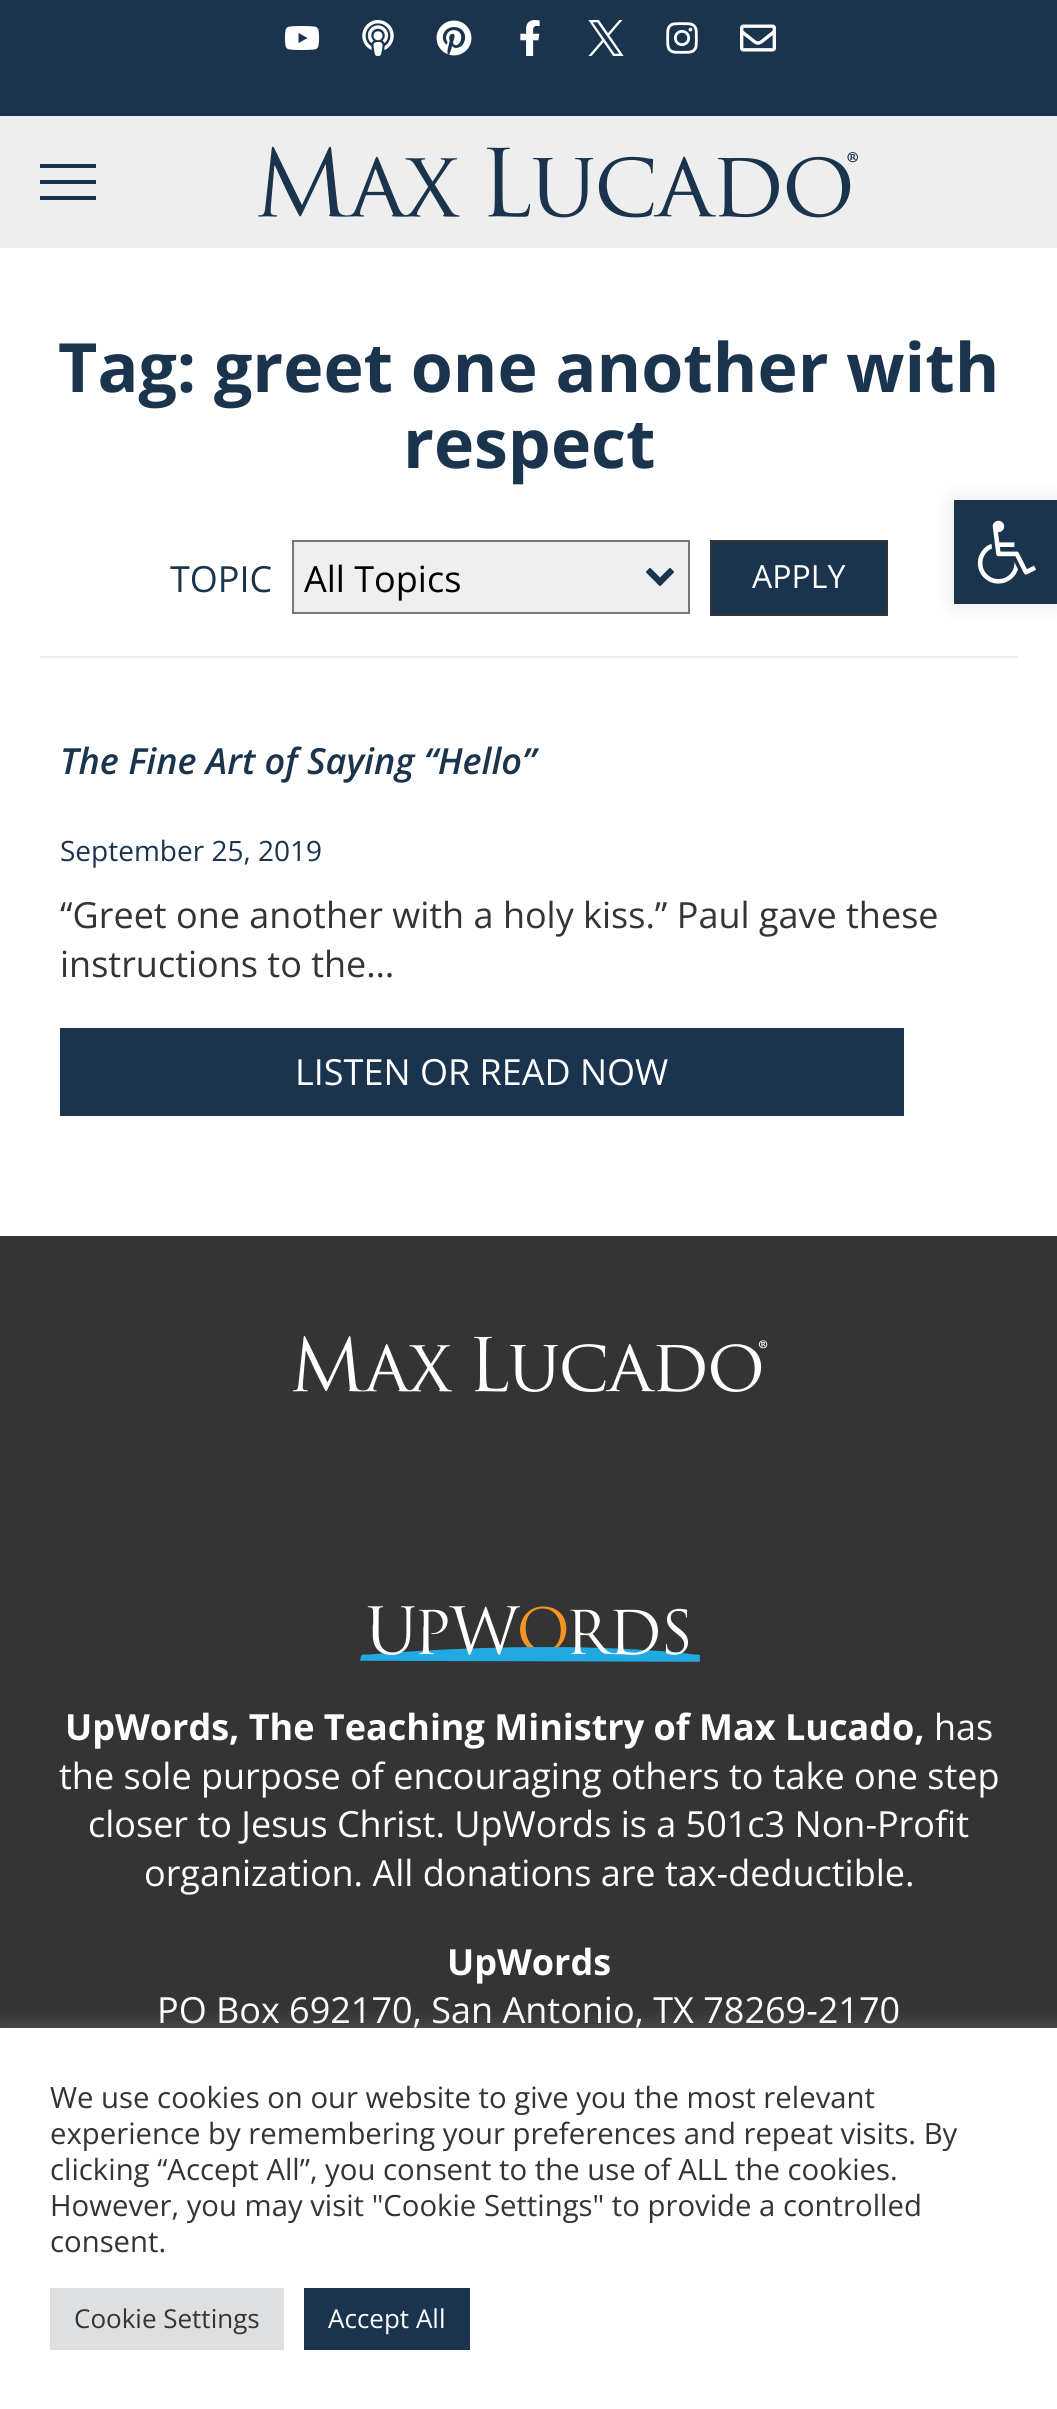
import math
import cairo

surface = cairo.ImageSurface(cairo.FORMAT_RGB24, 1057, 2409)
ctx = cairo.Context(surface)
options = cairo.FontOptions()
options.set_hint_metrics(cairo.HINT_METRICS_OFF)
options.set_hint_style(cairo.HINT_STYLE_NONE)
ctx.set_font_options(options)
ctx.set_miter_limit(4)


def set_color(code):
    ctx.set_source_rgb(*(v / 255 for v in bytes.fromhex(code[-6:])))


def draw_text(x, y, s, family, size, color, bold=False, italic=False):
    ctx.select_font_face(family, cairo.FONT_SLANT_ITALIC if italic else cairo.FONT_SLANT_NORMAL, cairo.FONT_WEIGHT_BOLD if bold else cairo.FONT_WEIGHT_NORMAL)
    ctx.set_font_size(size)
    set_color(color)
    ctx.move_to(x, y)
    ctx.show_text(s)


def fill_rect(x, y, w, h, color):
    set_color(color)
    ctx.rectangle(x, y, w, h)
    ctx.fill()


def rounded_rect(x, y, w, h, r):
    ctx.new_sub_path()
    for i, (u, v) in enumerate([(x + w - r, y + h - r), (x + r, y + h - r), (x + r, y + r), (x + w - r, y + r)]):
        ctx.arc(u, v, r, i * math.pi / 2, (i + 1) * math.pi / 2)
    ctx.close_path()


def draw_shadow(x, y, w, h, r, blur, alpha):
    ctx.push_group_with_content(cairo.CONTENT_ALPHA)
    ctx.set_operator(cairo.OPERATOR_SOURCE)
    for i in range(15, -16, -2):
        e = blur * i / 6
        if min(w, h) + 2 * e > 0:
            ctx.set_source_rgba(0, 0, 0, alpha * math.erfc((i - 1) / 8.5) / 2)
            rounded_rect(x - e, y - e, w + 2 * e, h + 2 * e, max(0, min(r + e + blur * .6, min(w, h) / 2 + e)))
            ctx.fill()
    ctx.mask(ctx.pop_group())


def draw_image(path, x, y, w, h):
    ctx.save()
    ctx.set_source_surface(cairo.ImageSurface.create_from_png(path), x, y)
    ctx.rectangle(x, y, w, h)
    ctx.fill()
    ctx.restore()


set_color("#ffffff")
ctx.paint()
fill_rect(0, 0, 1057, 116, "#1a344d")
draw_image("assets/img1.png", 284, 26, 36, 24)
draw_image("assets/img2.png", 362, 20, 32, 36)
draw_image("assets/img3.png", 436, 20, 36, 36)
draw_image("assets/img4.png", 520, 20, 20, 36)
draw_image("assets/img5.png", 588, 20, 36, 36)
draw_image("assets/img6.png", 666, 22, 32, 32)
draw_image("assets/img7.png", 740, 24, 36, 28)
fill_rect(0, 116, 1057, 132, "#eeeeee")
fill_rect(40, 180, 56, 4, "#1a344d")
fill_rect(40, 164, 56, 4, "#1a344d")
fill_rect(40, 196, 56, 4, "#1a344d")
draw_image("assets/img8.png", 258, 146, 600, 72)
fill_rect(40, 656, 978, 2, "#eeeeee")
draw_text(58, 392, "Tag: greet one another with", "Open Sans", 68, "#1a344d", bold=True)
draw_text(403, 468, "respect", "Open Sans", 68, "#1a344d", bold=True)
draw_text(170, 592, "TOPIC", "Open Sans", 36, "#1a344d")
fill_rect(294, 542, 394, 70, "#efefef")
draw_image("assets/img9.png", 646, 568, 28, 18)
ctx.rectangle(293, 541, 396, 72)
set_color("#767676")
ctx.stroke()
draw_text(304, 592, "All Topics", "Open Sans", 36, "#000000")
set_color("#1a344d")
ctx.rectangle(711, 541, 176, 74)
ctx.fill_preserve()
set_color("#343434")
ctx.stroke()
draw_text(752, 588, "APPLY", "Open Sans", 32, "#ffffff")
draw_text(60, 774, "The Fine Art of Saying “Hello”", "Open Sans SemiBold", 36, "#1a344d", italic=True)
draw_text(60, 861, "September 25, 2019", "Open Sans", 28, "#1a344d")
draw_text(60, 928, "“Greet one another with a holy kiss.” Paul gave these", "Open Sans", 36, "#343434")
draw_text(60, 977, "instructions to the…", "Open Sans", 36, "#343434")
fill_rect(60, 1028, 844, 88, "#1a344d")
draw_text(295, 1085, "LISTEN OR READ NOW", "Open Sans", 36, "#ffffff")
fill_rect(0, 1236, 1057, 792, "#343434")
draw_image("assets/img10.png", 292, 1336, 476, 56)
draw_image("assets/img11.png", 360, 1606, 340, 56)
draw_text(65, 1740, "UpWords, The Teaching Ministry of Max Lucado,", "Open Sans", 36, "#ffffff", bold=True)
draw_text(934, 1740, "has", "Open Sans", 36, "#ffffff")
draw_text(59, 1789, "the sole purpose of encouraging others to take one step", "Open Sans", 36, "#ffffff")
draw_text(88, 1837, "closer to Jesus Christ. UpWords is a 501c3 Non-Profit", "Open Sans", 36, "#ffffff")
draw_text(144, 1886, "organization. All donations are tax-deductible.", "Open Sans", 36, "#ffffff")
draw_text(447, 1975, "UpWords", "Open Sans", 36, "#ffffff", bold=True)
draw_text(157, 2023, "PO Box 692170, San Antonio, TX 78269-2170", "Open Sans", 36, "#ffffff")
set_color("#acabab")
draw_shadow(0, 2026, 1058, 382, 0, 10, 0.3)
fill_rect(0, 2028, 1057, 381, "#ffffff")
draw_text(50, 2108, "We use cookies on our website to give you the most relevant", "Open Sans", 29.3, "#343434")
draw_text(50, 2144, "experience by remembering your preferences and repeat visits. By", "Open Sans", 29.3, "#343434")
draw_text(50, 2180, "clicking “Accept All”, you consent to the use of ALL the cookies.", "Open Sans", 29.3, "#343434")
draw_text(50, 2216, "However, you may visit \"Cookie Settings\" to provide a controlled", "Open Sans", 29.3, "#343434")
draw_text(50, 2252, "consent.", "Open Sans", 29.3, "#343434")
fill_rect(50, 2288, 234, 62, "#dedfe0")
draw_text(74, 2328, "Cookie Settings", "Open Sans", 26, "#343434")
fill_rect(304, 2288, 166, 62, "#1a344d")
draw_text(328, 2328, "Accept All", "Open Sans", 26, "#ffffff")
set_color("#000000")
draw_shadow(954, 500, 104, 104, 0, 10, 0.1)
fill_rect(954, 500, 103, 104, "#1a344d")
draw_image("assets/img12.png", 977, 520, 59, 64)
surface.write_to_png("output.png")
